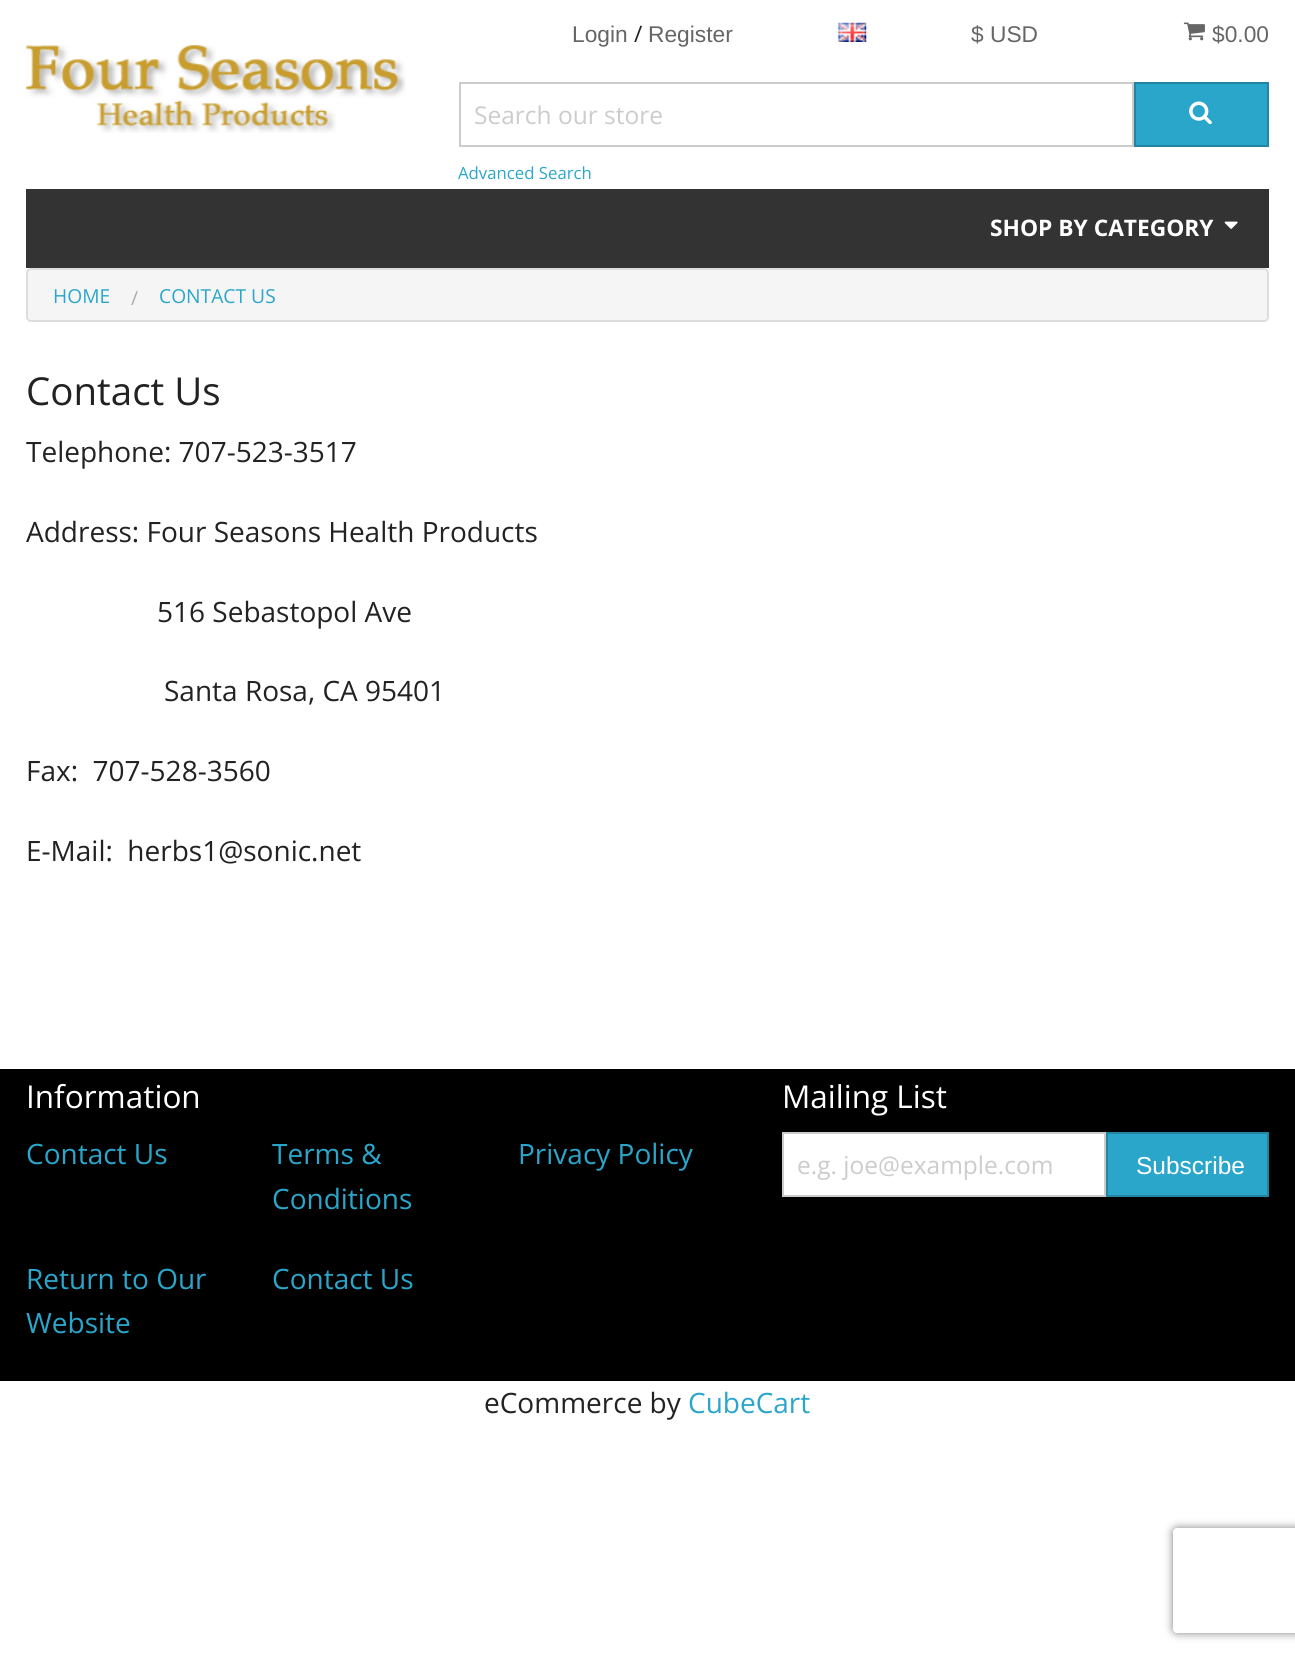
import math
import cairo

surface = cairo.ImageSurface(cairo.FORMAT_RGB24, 1295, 1657)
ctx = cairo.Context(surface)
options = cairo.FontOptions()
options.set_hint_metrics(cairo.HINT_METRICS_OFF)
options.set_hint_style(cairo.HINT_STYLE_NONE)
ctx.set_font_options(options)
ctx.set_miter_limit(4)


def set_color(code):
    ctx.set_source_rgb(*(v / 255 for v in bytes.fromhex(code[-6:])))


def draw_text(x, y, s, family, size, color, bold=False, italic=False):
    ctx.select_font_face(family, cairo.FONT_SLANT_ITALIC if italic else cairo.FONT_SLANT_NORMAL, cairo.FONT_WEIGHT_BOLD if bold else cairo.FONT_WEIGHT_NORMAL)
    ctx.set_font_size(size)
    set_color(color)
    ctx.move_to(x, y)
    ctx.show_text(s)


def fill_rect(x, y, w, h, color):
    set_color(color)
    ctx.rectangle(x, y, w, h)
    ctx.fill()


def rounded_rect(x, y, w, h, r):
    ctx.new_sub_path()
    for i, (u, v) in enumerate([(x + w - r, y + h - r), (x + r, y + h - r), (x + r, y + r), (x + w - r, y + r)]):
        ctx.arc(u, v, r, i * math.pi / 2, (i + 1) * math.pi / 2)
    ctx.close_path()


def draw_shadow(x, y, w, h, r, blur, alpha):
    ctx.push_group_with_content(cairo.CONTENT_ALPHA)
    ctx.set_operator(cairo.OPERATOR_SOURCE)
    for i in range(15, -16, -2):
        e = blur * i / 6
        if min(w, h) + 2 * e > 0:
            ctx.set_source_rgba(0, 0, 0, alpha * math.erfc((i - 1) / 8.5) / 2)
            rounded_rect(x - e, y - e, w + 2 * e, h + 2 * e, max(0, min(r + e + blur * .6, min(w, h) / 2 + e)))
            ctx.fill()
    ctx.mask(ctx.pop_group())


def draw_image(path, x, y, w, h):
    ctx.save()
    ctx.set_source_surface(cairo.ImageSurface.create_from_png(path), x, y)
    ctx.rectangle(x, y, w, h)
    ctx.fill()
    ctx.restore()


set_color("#ffffff")
ctx.paint()
draw_image("assets/img1.png", 26, 45, 380, 88)
draw_text(572, 42, "Login", "Liberation Sans", 22.75, "#666666")
draw_text(634, 42, "/", "Open Sans", 22.75, "#222222")
draw_text(648, 42, "Register", "Liberation Sans", 22.75, "#666666")
draw_image("assets/img2.png", 837, 22, 30, 20)
draw_text(971, 42, "$ USD", "Liberation Sans", 22.75, "#666666")
draw_image("assets/img3.png", 1183, 22, 22, 19)
draw_text(1212, 42, "$0.00", "Liberation Sans", 22.75, "#666666")
ctx.rectangle(460, 83, 673, 63)
set_color("#cccccc")
ctx.stroke()
draw_text(474, 124, "Search our store", "Open Sans", 24.5, "#cccccc")
draw_text(458, 179, "Advanced Search", "Open Sans", 16.75, "#2ba6cb")
ctx.rectangle(1135, 83, 133, 63)
ctx.fill_preserve()
set_color("#2285a2")
ctx.stroke()
draw_image("assets/img4.png", 1189, 101, 23, 23)
fill_rect(26, 189, 1243, 79, "#333333")
draw_text(990, 236, "SHOP BY CATEGORY", "Open Sans", 22.75, "#ffffff", bold=True)
draw_image("assets/img5.png", 1224, 221, 14, 8)
set_color("#f5f5f5")
rounded_rect(27, 269, 1241, 52, 4)
ctx.fill_preserve()
set_color("#dddddd")
ctx.stroke()
draw_text(53, 303, "HOME", "Open Sans", 19.25, "#2ba6cb")
draw_text(131, 305, "/", "Open Sans", 19.25, "#aaaaaa")
draw_text(159, 303, "CONTACT US", "Open Sans", 19.25, "#2ba6cb")
draw_text(26, 405, "Contact Us", "Open Sans", 38.5, "#222222")
draw_text(26, 462, "Telephone: 707-523-3517", "Open Sans", 28, "#222222")
draw_text(26, 542, "Address: Four Seasons Health Products", "Open Sans", 28, "#222222")
draw_text(157, 622, "516 Sebastopol Ave", "Open Sans", 28, "#222222")
draw_text(164, 701, "Santa Rosa, CA 95401", "Open Sans", 28, "#222222")
draw_text(26, 781, "Fax:  707-528-3560", "Open Sans", 28, "#222222")
draw_text(26, 861, "E-Mail:  herbs1@sonic.net", "Open Sans", 28, "#222222")
fill_rect(0, 1069, 1295, 312, "#000000")
draw_text(26, 1108, "Information", "Open Sans", 31.5, "#ffffff")
draw_text(26, 1164, "Contact Us", "Open Sans", 28, "#2ba6cb")
draw_text(272, 1164, "Terms &", "Open Sans", 28, "#2ba6cb")
draw_text(272, 1209, "Conditions", "Open Sans", 28, "#2ba6cb")
draw_text(518, 1164, "Privacy Policy", "Open Sans", 28, "#2ba6cb")
draw_text(26, 1289, "Return to Our", "Open Sans", 28, "#2ba6cb")
draw_text(26, 1333, "Website", "Open Sans", 28, "#2ba6cb")
draw_text(272, 1289, "Contact Us", "Open Sans", 28, "#2ba6cb")
draw_text(782, 1108, "Mailing List", "Open Sans", 31.5, "#ffffff")
ctx.rectangle(783, 1133, 322, 63)
ctx.fill_preserve()
set_color("#cccccc")
ctx.stroke()
draw_text(797, 1174, "e.g. joe@example.com", "Open Sans", 24.5, "#cccccc")
set_color("#2ba6cb")
ctx.rectangle(1107, 1133, 161, 63)
ctx.fill_preserve()
set_color("#2285a2")
ctx.stroke()
draw_text(1136, 1174, "Subscribe", "Liberation Sans", 24.5, "#ffffff")
ctx.save()
ctx.set_fill_rule(cairo.FILL_RULE_EVEN_ODD)
ctx.new_path()
ctx.move_to(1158, 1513)
ctx.line_to(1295, 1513)
ctx.line_to(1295, 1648)
ctx.line_to(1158, 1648)
ctx.close_path()
ctx.move_to(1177, 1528)
ctx.line_to(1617, 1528)
ctx.curve_to(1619, 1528, 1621, 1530, 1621, 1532)
ctx.line_to(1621, 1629)
ctx.curve_to(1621, 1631, 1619, 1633, 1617, 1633)
ctx.line_to(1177, 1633)
ctx.curve_to(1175, 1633, 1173, 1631, 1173, 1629)
ctx.line_to(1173, 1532)
ctx.curve_to(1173, 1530, 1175, 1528, 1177, 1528)
ctx.close_path()
ctx.clip()
set_color("#808080")
draw_shadow(1173, 1528, 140, 105, 4, 4.5, 1)
ctx.restore()
draw_text(484, 1413, "eCommerce by", "Open Sans", 28, "#222222")
draw_text(688, 1413, "CubeCart", "Open Sans", 28, "#2ba6cb")
surface.write_to_png("output.png")
